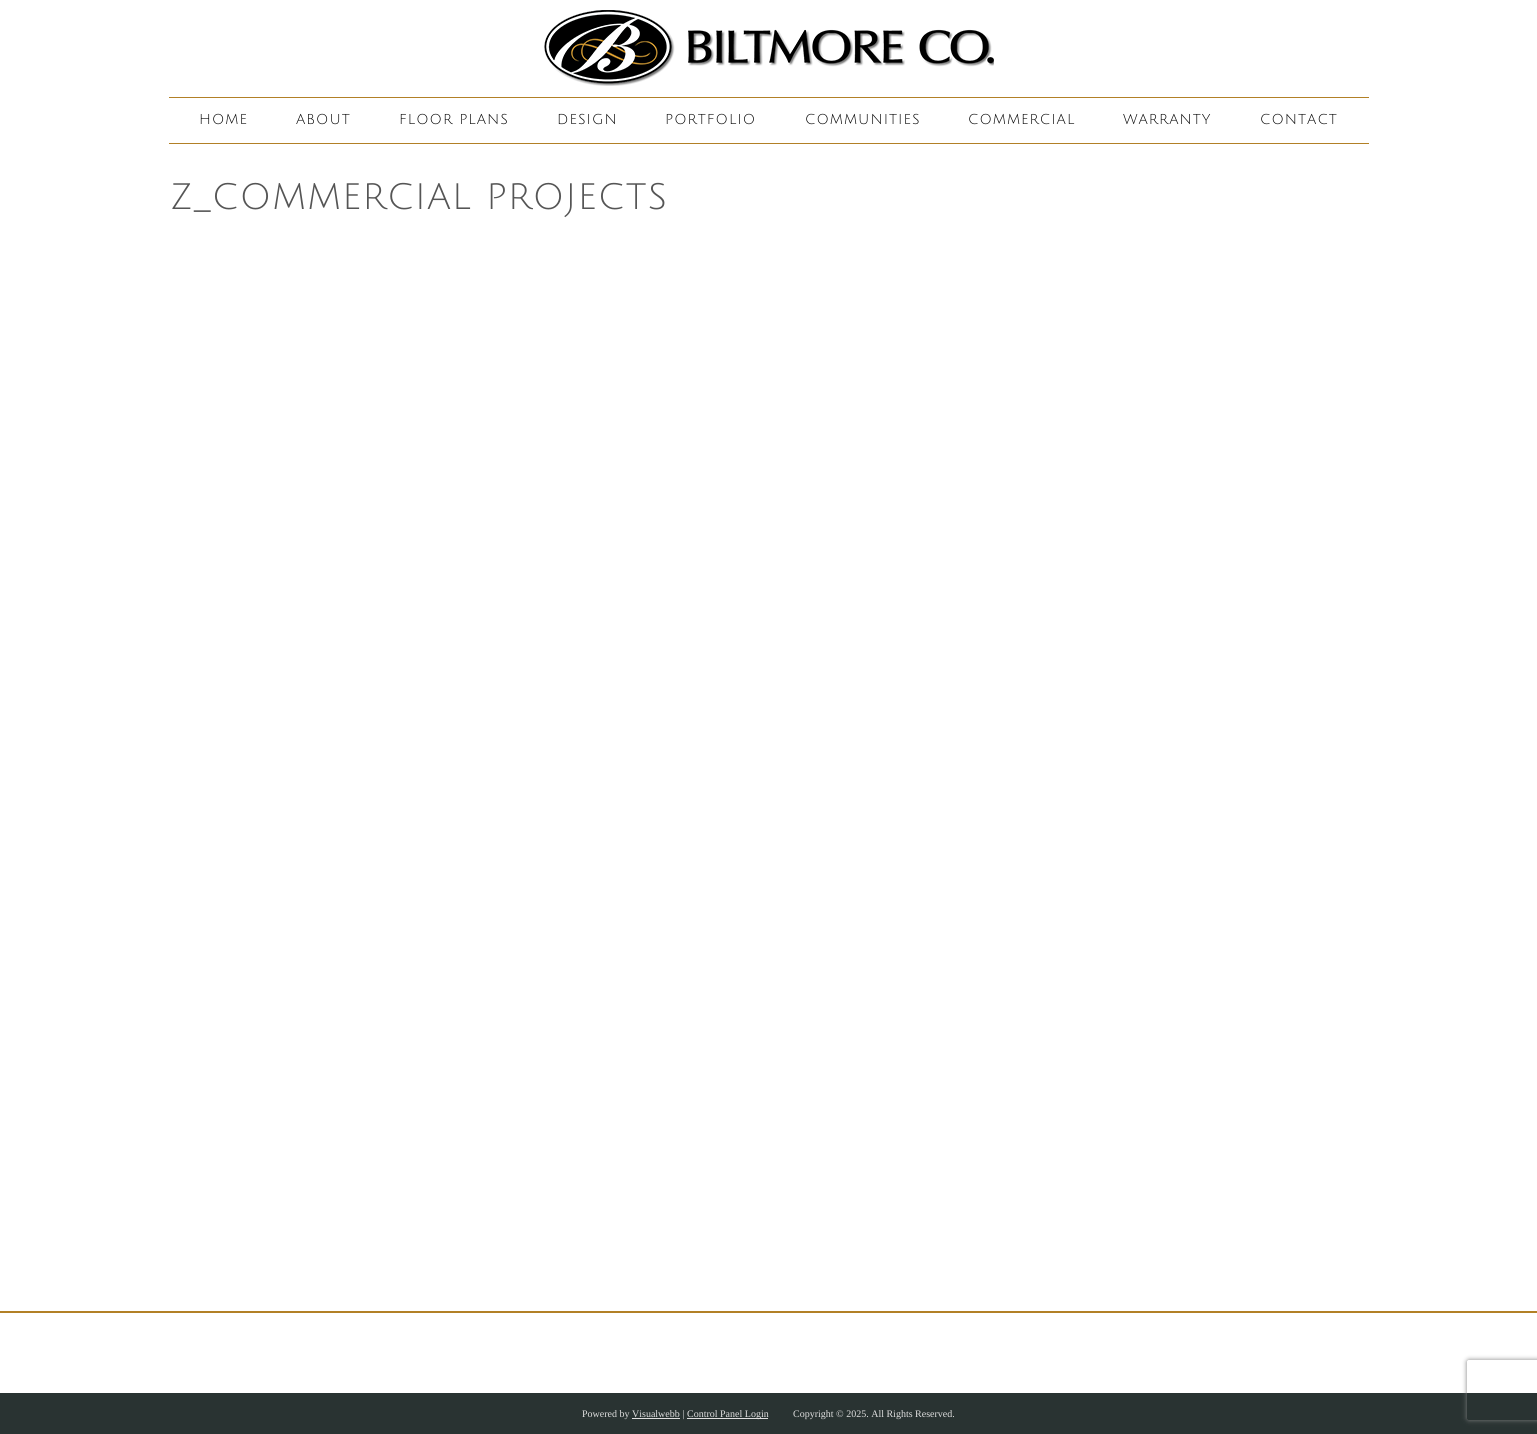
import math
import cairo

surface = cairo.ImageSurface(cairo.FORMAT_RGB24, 1537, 1434)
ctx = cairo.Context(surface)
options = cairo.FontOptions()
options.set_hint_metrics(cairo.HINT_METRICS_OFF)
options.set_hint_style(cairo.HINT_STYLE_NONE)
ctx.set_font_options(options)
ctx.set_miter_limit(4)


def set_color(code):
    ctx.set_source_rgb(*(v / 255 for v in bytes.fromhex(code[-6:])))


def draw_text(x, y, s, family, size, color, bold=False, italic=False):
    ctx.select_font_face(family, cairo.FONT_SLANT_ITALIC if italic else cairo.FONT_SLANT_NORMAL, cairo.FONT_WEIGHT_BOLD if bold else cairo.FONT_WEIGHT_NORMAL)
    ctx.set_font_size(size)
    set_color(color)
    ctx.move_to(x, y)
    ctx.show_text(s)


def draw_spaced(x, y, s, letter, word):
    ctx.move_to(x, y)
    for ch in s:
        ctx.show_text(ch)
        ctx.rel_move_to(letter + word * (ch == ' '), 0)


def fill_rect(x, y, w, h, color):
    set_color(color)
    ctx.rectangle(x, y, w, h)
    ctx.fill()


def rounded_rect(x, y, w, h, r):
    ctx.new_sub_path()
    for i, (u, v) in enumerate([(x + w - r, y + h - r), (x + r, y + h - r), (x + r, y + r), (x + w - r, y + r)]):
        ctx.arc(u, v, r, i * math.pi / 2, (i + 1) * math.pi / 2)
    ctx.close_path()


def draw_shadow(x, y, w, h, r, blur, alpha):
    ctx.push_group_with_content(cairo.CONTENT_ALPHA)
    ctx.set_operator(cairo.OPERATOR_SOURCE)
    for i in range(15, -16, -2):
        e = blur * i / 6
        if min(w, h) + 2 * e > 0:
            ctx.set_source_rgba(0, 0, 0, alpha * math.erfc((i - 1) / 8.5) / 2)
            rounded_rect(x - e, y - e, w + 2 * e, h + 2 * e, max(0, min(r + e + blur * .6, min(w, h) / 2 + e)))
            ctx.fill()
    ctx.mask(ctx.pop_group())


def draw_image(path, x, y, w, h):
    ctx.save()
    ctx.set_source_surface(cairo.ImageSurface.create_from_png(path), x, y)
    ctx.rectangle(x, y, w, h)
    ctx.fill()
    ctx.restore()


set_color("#ffffff")
ctx.paint()
draw_image("assets/img1.png", 544, 10, 450, 76)
fill_rect(169, 97, 1200, 1, "#b28026")
fill_rect(169, 143, 1200, 1, "#b28026")
ctx.select_font_face("Julius Sans One")
ctx.set_font_size(14)
set_color("#000000")
draw_spaced(199, 124, "HOME", 1, 0)
draw_spaced(296, 124, "ABOUT", 1, 0)
draw_spaced(399, 124, "FLOOR PLANS", 1, 0)
draw_spaced(557, 124, "DESIGN", 1, 0)
draw_spaced(665, 124, "PORTFOLIO", 1, 0)
draw_spaced(805, 124, "COMMUNITIES", 1, 0)
draw_spaced(968, 124, "COMMERCIAL", 1, 0)
draw_spaced(1123, 124, "WARRANTY", 1, 0)
draw_spaced(1260, 124, "CONTACT", 1, 0)
ctx.set_font_size(36)
set_color("#555555")
draw_spaced(170, 209, "Z_COMMERCIAL PROJECTS", 1, 0)
fill_rect(0, 1311, 1537, 2, "#b28026")
fill_rect(0, 1393, 1537, 41, "#293332")
draw_text(582, 1417, "Powered by Visualwebb |", "Liberation Serif", 10, "#dfdfdf")
fill_rect(632, 1418, 48, 1, "#dfdfdf")
fill_rect(687, 1418, 81, 1, "#dfdfdf")
draw_text(687, 1417, "Control Panel Login", "Liberation Serif", 10, "#dfdfdf")
draw_text(793, 1417, "Copyright © 2025. All Rights Reserved.", "Liberation Serif", 10, "#dfdfdf")
ctx.save()
ctx.set_fill_rule(cairo.FILL_RULE_EVEN_ODD)
ctx.new_path()
ctx.move_to(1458, 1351)
ctx.line_to(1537, 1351)
ctx.line_to(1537, 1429)
ctx.line_to(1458, 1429)
ctx.close_path()
ctx.move_to(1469, 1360)
ctx.line_to(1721, 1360)
ctx.curve_to(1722, 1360, 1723, 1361, 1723, 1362)
ctx.line_to(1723, 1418)
ctx.curve_to(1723, 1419, 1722, 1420, 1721, 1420)
ctx.line_to(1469, 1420)
ctx.curve_to(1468, 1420, 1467, 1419, 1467, 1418)
ctx.line_to(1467, 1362)
ctx.curve_to(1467, 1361, 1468, 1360, 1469, 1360)
ctx.close_path()
ctx.clip()
set_color("#808080")
draw_shadow(1467, 1360, 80, 60, 2, 2.5, 1)
ctx.restore()
surface.write_to_png("output.png")
